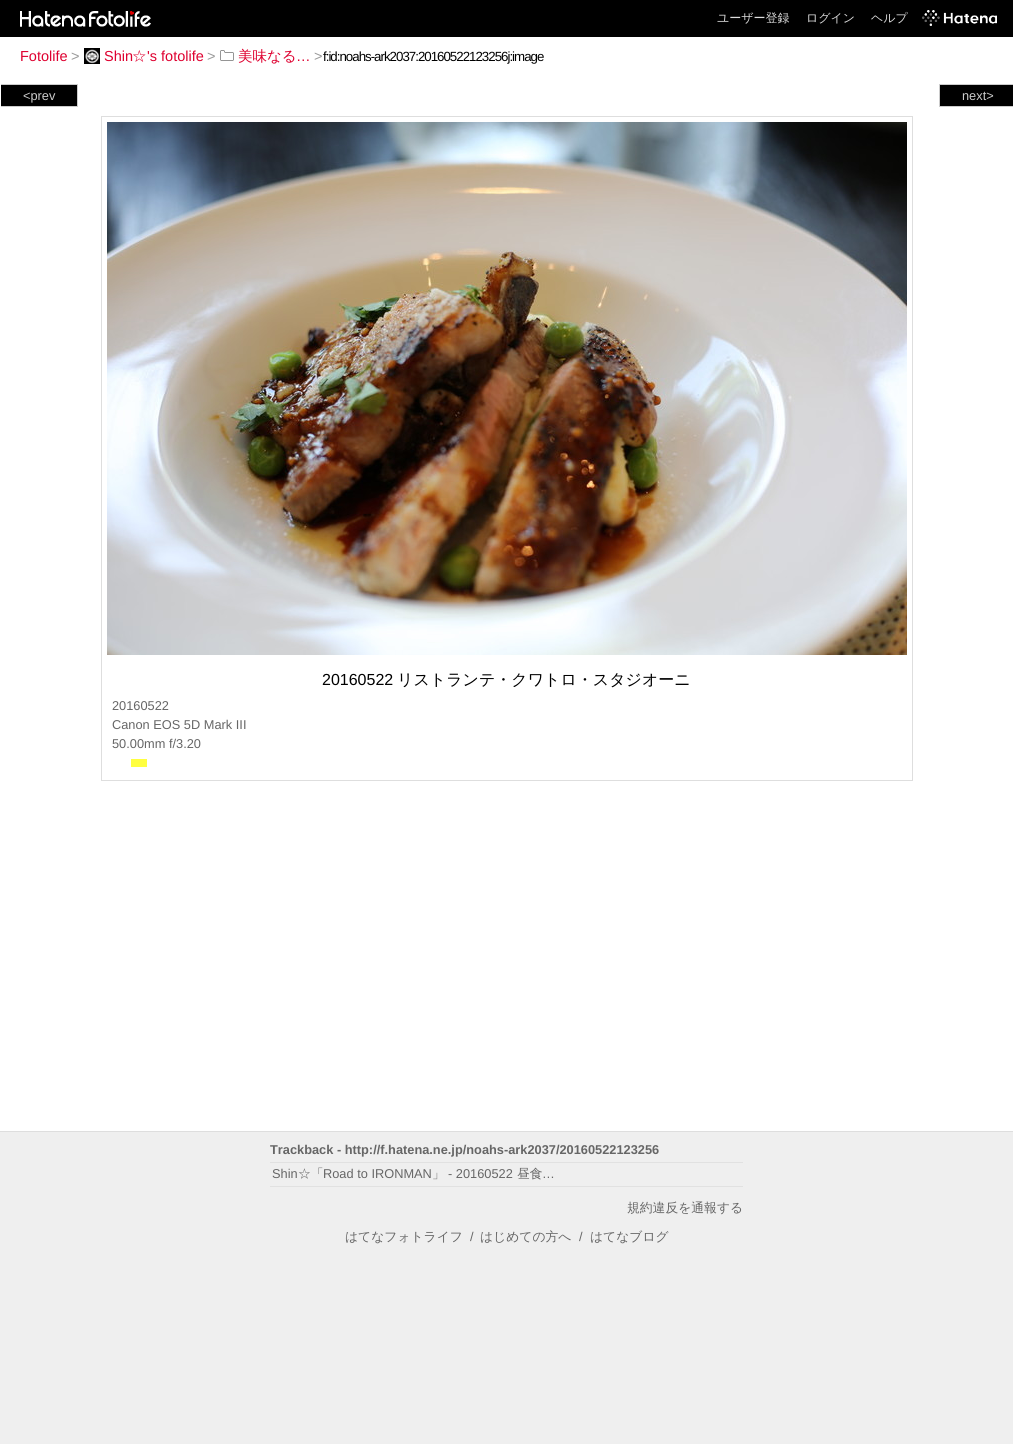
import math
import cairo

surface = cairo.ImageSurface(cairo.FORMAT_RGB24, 1013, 1444)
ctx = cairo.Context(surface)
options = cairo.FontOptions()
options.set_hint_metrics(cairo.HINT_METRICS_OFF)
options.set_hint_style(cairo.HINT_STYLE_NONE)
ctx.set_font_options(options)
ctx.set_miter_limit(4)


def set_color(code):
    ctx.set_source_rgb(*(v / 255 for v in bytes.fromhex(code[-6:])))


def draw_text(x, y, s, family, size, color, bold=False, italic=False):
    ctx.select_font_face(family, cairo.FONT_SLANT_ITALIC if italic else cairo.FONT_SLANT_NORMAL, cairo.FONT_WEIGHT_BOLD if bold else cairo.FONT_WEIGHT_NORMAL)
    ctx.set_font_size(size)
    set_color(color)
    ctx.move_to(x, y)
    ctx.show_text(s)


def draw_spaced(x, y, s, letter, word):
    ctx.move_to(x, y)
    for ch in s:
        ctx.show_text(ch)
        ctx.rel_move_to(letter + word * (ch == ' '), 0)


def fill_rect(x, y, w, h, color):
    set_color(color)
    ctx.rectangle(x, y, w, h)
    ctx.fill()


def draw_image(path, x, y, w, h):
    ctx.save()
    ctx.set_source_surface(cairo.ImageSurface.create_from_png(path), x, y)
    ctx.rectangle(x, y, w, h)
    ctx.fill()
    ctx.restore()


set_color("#efefef")
ctx.paint()
fill_rect(0, 0, 1013, 37, "#000000")
draw_image("assets/img1.png", 20, 11, 66, 16)
draw_image("assets/img2.png", 89, 11, 62, 16)
draw_text(717, 22, "ユーザー登録", "WenQuanYi Zen Hei Medium", 12, "#dddddd")
draw_text(806, 22, "ログイン", "WenQuanYi Zen Hei Medium", 12, "#dddddd")
draw_text(871, 22, "ヘルプ", "WenQuanYi Zen Hei Medium", 12, "#dddddd")
draw_image("assets/img3.png", 922, 10, 75, 16)
fill_rect(0, 37, 1013, 1094, "#ffffff")
draw_text(20, 61, "Fotolife", "Liberation Sans", 14.5, "#de002f")
draw_text(71, 61, ">", "Liberation Sans", 14.5, "#999999")
draw_image("assets/img4.png", 84, 48, 16, 16)
draw_text(104, 61, "Shin", "Liberation Sans", 14.5, "#de002f")
draw_text(132, 61, "☆", "WenQuanYi Zen Hei Medium", 14.5, "#de002f")
draw_text(147, 61, "'s fotolife", "Liberation Sans", 14.5, "#de002f")
draw_text(207, 61, ">", "Liberation Sans", 14.5, "#999999")
draw_image("assets/img5.png", 220, 50, 14, 11)
draw_text(238, 61, "美味なる", "WenQuanYi Zen Hei Medium", 14.5, "#de002f")
draw_text(296, 61, "…", "Liberation Sans", 14.5, "#de002f")
draw_text(314, 61, ">", "Liberation Sans", 14.5, "#999999")
ctx.set_font_size(13.3)
set_color("#000000")
draw_spaced(323, 61, "f:id:noahs-ark2037:20160522123256j:image", -1, 0)
fill_rect(0, 1131, 1013, 1, "#dedede")
fill_rect(1, 85, 76, 21, "#000000")
fill_rect(1, 84, 77, 1, "#cccccc")
fill_rect(77, 84, 1, 23, "#cccccc")
fill_rect(1, 106, 77, 1, "#cccccc")
draw_text(23, 100, "<prev", "Liberation Sans", 12.8, "#cccccc")
fill_rect(940, 85, 73, 21, "#000000")
fill_rect(939, 84, 74, 1, "#cccccc")
fill_rect(939, 106, 74, 1, "#cccccc")
fill_rect(939, 84, 1, 23, "#cccccc")
draw_text(962, 100, "next>", "Liberation Sans", 12.8, "#cccccc")
ctx.rectangle(101.5, 116.5, 811, 664)
set_color("#dedede")
ctx.set_line_width(1)
ctx.stroke()
draw_image("assets/img6.png", 107, 122, 800, 533)
draw_text(322, 685, "20160522", "Liberation Sans", 16, "#000000")
draw_text(397, 685, "リストランテ・クワトロ・スタジオーニ", "WenQuanYi Zen Hei Medium", 16, "#000000")
draw_text(112, 710, "20160522", "Liberation Sans", 12.8, "#666666")
draw_text(112, 729, "Canon EOS 5D Mark III", "Liberation Sans", 12.8, "#666666")
draw_text(112, 748, "50.00mm f/3.20", "Liberation Sans", 12.8, "#666666")
fill_rect(131, 759, 16, 8, "#ffff40")
draw_text(270, 1154, "Trackback - http://f.hatena.ne.jp/noahs-ark2037/20160522123256", "Liberation Sans", 12.8, "#666666", bold=True)
fill_rect(270, 1162, 473, 1, "#e1e1e1")
fill_rect(270, 1186, 473, 1, "#e1e1e1")
draw_text(272, 1178, "Shin", "Liberation Sans", 12.8, "#666666")
draw_text(298, 1178, "☆「", "WenQuanYi Zen Hei Medium", 12.8, "#666666")
draw_text(323, 1178, "Road to IRONMAN", "Liberation Sans", 12.8, "#666666")
draw_text(432, 1178, "」", "WenQuanYi Zen Hei Medium", 12.8, "#666666")
draw_text(448, 1178, "- 20160522", "Liberation Sans", 12.8, "#666666")
draw_text(517, 1178, "昼食", "WenQuanYi Zen Hei Medium", 12.8, "#666666")
draw_text(542, 1178, "…", "Liberation Sans", 12.8, "#666666")
draw_text(627, 1212, "規約違反を通報する", "WenQuanYi Zen Hei Medium", 12.8, "#666666")
draw_text(345, 1241, "はてなフォトライフ", "WenQuanYi Zen Hei Medium", 12.8, "#666666")
draw_text(470, 1241, "/", "Liberation Sans", 12.8, "#666666")
draw_text(480, 1241, "はじめての方へ", "WenQuanYi Zen Hei Medium", 12.8, "#666666")
draw_text(579, 1241, "/", "Liberation Sans", 12.8, "#666666")
draw_text(590, 1241, "はてなブログ", "WenQuanYi Zen Hei Medium", 12.8, "#666666")
surface.write_to_png("output.png")
